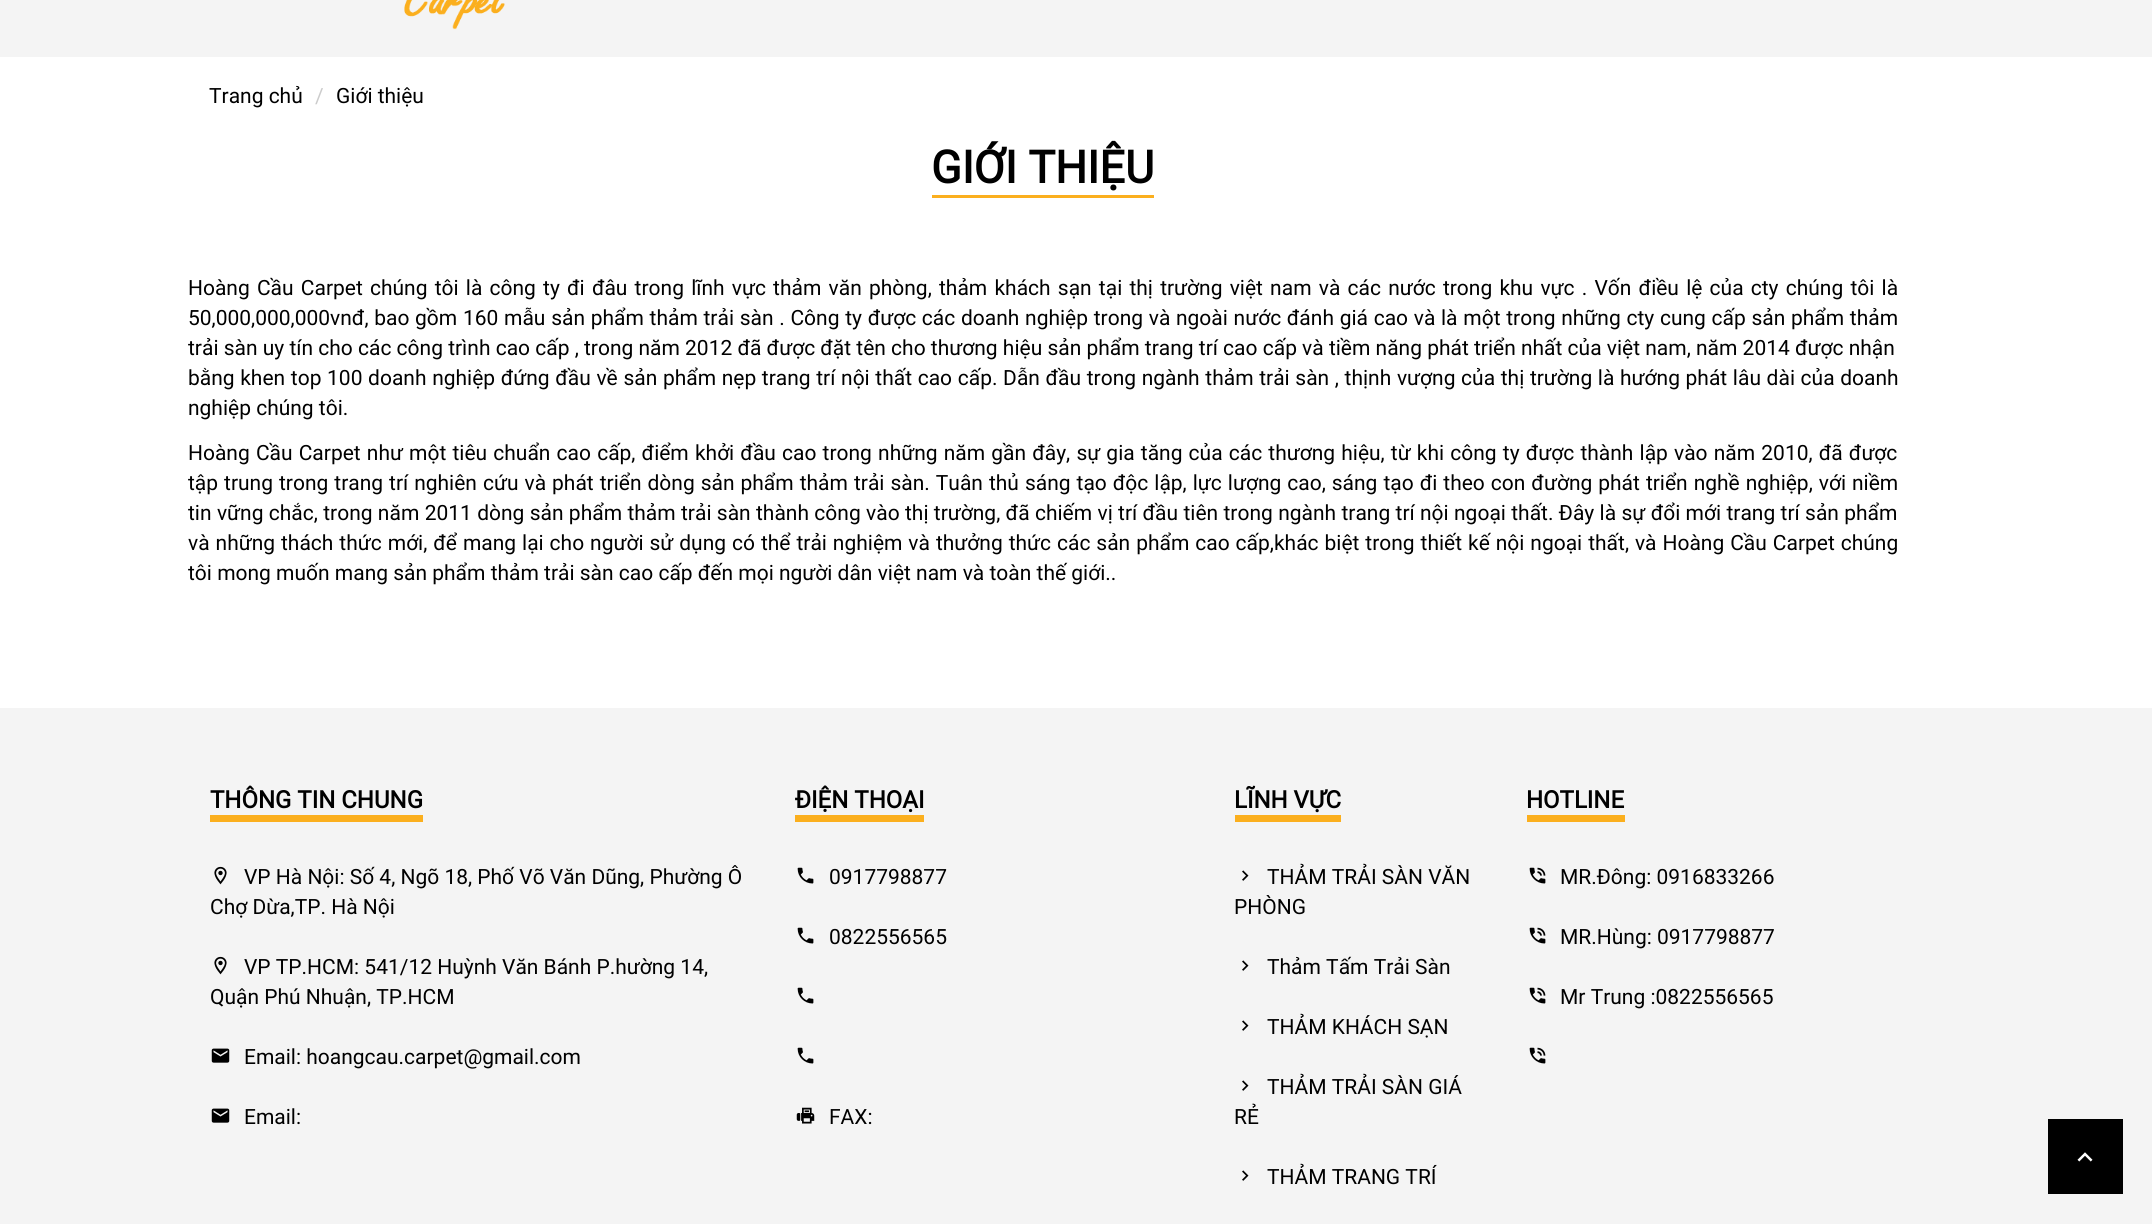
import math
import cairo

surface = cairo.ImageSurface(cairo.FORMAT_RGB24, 2152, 1224)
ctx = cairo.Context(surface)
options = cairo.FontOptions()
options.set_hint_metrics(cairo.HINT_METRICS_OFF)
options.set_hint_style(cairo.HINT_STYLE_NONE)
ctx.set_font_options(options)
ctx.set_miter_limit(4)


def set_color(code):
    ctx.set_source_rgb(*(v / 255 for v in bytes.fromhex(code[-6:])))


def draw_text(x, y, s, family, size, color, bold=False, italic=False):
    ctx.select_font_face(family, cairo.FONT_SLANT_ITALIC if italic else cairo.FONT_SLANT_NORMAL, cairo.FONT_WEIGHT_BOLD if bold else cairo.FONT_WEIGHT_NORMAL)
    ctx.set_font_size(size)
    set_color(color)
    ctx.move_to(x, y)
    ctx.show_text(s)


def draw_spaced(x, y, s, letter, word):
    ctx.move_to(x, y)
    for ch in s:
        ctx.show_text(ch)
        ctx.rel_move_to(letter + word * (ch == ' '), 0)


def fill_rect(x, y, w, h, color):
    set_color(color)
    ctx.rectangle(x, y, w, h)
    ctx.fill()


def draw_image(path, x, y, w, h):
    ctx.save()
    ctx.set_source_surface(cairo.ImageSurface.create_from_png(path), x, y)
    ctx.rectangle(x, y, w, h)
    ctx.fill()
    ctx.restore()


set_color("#ffffff")
ctx.paint()
fill_rect(0, 0, 2152, 57, "#f4f4f4")
draw_image("assets/img1.png", 404, 0, 101, 30)
draw_text(209, 103, "Trang chủ", "Roboto", 21, "#000000")
draw_text(315, 103, "/", "Roboto", 21, "#cccccc")
draw_text(336, 103, "Giới thiệu", "Roboto", 21, "#000000")
draw_text(931, 183, "GIỚI THIỆU", "Roboto", 45, "#000000", bold=True)
fill_rect(932, 195, 222, 3, "#fbaf1e")
ctx.select_font_face("Roboto")
ctx.set_font_size(21)
set_color("#000000")
draw_spaced(188, 295, "Hoàng Cầu Carpet chúng tôi là công ty đi đâu trong lĩnh vực thảm văn phòng, thảm khách sạn tại thị trường việt nam và các nước trong khu vực . Vốn điều lệ của cty chúng tôi là", 0, 2)
draw_spaced(188, 325, "50,000,000,000vnđ, bao gồm 160 mẫu sản phẩm thảm trải sàn . Công ty được các doanh nghiệp trong và ngoài nước đánh giá cao và là một trong những cty cung cấp sản phẩm thảm", 0, 0.5)
draw_text(188, 355, "trải sàn uy tín cho các công trình cao cấp , trong năm 2012 đã được đặt tên cho thương hiệu sản phẩm trang trí cao cấp và tiềm năng phát triển nhất của việt nam, năm 2014 được nhận", "Roboto", 21, "#000000")
draw_spaced(188, 385, "bằng khen top 100 doanh nghiệp đứng đầu về sản phẩm nẹp trang trí nội thất cao cấp. Dẫn đầu trong ngành thảm trải sàn , thịnh vượng của thị trường là hướng phát lâu dài của doanh", 0, 0.45)
draw_text(188, 415, "nghiệp chúng tôi.", "Roboto", 21, "#000000")
draw_spaced(188, 460, "Hoàng Cầu Carpet như một tiêu chuẩn cao cấp, điểm khởi đầu cao trong những năm gần đây, sự gia tăng của các thương hiệu, từ khi công ty được thành lập vào năm 2010, đã được", 0, 0.95)
draw_spaced(188, 490, "tập trung trong trang trí nghiên cứu và phát triển dòng sản phẩm thảm trải sàn. Tuân thủ sáng tạo độc lập, lực lượng cao, sáng tạo đi theo con đường phát triển nghề nghiệp, với niềm", 0, 0.8)
draw_spaced(188, 520, "tin vững chắc, trong năm 2011 dòng sản phẩm thảm trải sàn thành công vào thị trường, đã chiếm vị trí đầu tiên trong ngành trang trí nội ngoại thất. Đây là sự đổi mới trang trí sản phẩm", 0, 0.15)
draw_spaced(188, 550, "và những thách thức mới, để mang lại cho người sử dụng có thể trải nghiệm và thưởng thức các sản phẩm cao cấp,khác biệt trong thiết kế nội ngoại thất, và Hoàng Cầu Carpet chúng", 0, 0.75)
draw_text(188, 580, "tôi mong muốn mang sản phẩm thảm trải sàn cao cấp đến mọi người dân việt nam và toàn thế giới..", "Roboto", 21, "#000000")
fill_rect(0, 708, 2152, 516, "#f4f4f4")
draw_text(210, 808, "THÔNG TIN CHUNG", "Roboto", 24, "#000000", bold=True)
fill_rect(210, 815, 213, 7, "#fbaf1e")
draw_image("assets/img2.png", 214, 866, 13, 19)
draw_text(244, 884, "VP Hà Nội: Số 4, Ngõ 18, Phố Võ Văn Dũng, Phường Ô", "Roboto", 21, "#000000")
draw_text(210, 914, "Chợ Dừa,TP. Hà Nội", "Roboto", 21, "#000000")
draw_image("assets/img2.png", 214, 956, 13, 19)
draw_text(244, 974, "VP TP.HCM: 541/12 Huỳnh Văn Bánh P.hường 14,", "Roboto", 21, "#000000")
draw_text(210, 1004, "Quận Phú Nhuận, TP.HCM", "Roboto", 21, "#000000")
draw_image("assets/img3.png", 211, 1048, 19, 15)
draw_text(244, 1064, "Email: hoangcau.carpet@gmail.com", "Roboto", 21, "#000000")
draw_image("assets/img3.png", 211, 1108, 19, 15)
draw_text(244, 1124, "Email:", "Roboto", 21, "#000000")
draw_text(795, 808, "ĐIỆN THOẠI", "Roboto", 24, "#000000", bold=True)
fill_rect(795, 815, 129, 7, "#fbaf1e")
draw_image("assets/img4.png", 797, 867, 17, 17)
draw_text(829, 884, "0917798877", "Roboto", 21, "#000000")
draw_image("assets/img4.png", 797, 927, 17, 17)
draw_text(829, 944, "0822556565", "Roboto", 21, "#000000")
draw_image("assets/img4.png", 797, 987, 17, 17)
draw_image("assets/img4.png", 797, 1047, 17, 17)
draw_image("assets/img5.png", 796, 1107, 19, 17)
draw_text(829, 1124, "FAX:", "Roboto", 21, "#000000")
draw_text(1234, 808, "LĨNH VỰC", "Roboto", 24, "#000000", bold=True)
fill_rect(1235, 815, 106, 7, "#fbaf1e")
draw_image("assets/img6.png", 1242, 870, 7, 11)
draw_text(1267, 884, "THẢM TRẢI SÀN VĂN", "Roboto", 21, "#000000")
draw_text(1234, 914, "PHÒNG", "Roboto", 21, "#000000")
draw_image("assets/img6.png", 1242, 960, 7, 11)
draw_text(1267, 974, "Thảm Tấm Trải Sàn", "Roboto", 21, "#000000")
draw_image("assets/img6.png", 1242, 1020, 7, 11)
draw_text(1267, 1034, "THẢM KHÁCH SẠN", "Roboto", 21, "#000000")
draw_image("assets/img6.png", 1242, 1080, 7, 11)
draw_text(1267, 1094, "THẢM TRẢI SÀN GIÁ", "Roboto", 21, "#000000")
draw_text(1234, 1124, "RẺ", "Roboto", 21, "#000000")
draw_image("assets/img6.png", 1242, 1170, 7, 11)
draw_text(1267, 1184, "THẢM TRANG TRÍ", "Roboto", 21, "#000000")
draw_text(1526, 808, "HOTLINE", "Roboto", 24, "#000000", bold=True)
fill_rect(1527, 815, 98, 7, "#fbaf1e")
draw_image("assets/img7.png", 1529, 867, 17, 17)
draw_text(1560, 884, "MR.Đông: 0916833266", "Roboto", 21, "#000000")
draw_image("assets/img7.png", 1529, 927, 17, 17)
draw_text(1560, 944, "MR.Hùng: 0917798877", "Roboto", 21, "#000000")
draw_image("assets/img7.png", 1529, 987, 17, 17)
draw_text(1560, 1004, "Mr Trung :0822556565", "Roboto", 21, "#000000")
draw_image("assets/img7.png", 1529, 1047, 17, 17)
fill_rect(2048, 1119, 75, 75, "#000000")
draw_image("assets/img8.png", 2077, 1152, 16, 10)
surface.write_to_png("output.png")
